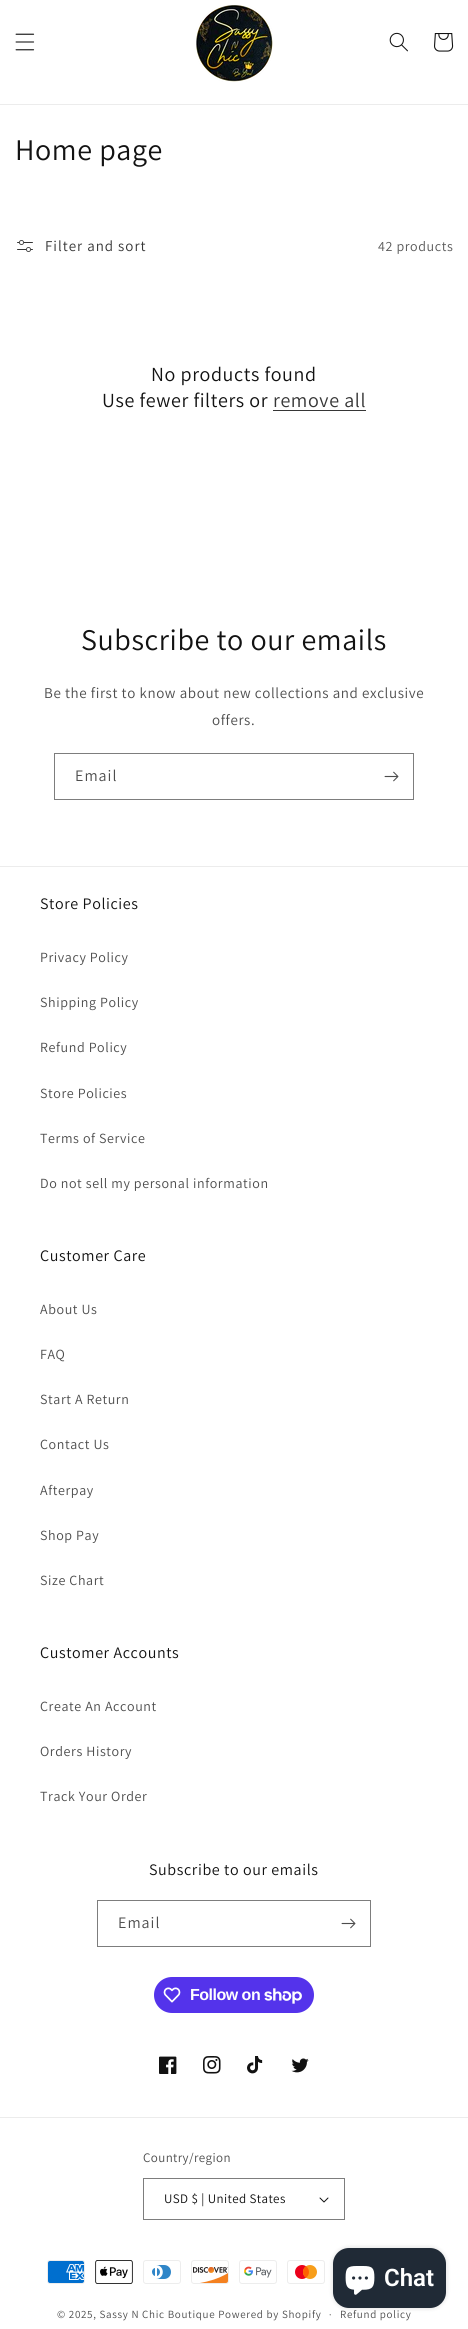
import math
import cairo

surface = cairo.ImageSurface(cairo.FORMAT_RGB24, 468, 2329)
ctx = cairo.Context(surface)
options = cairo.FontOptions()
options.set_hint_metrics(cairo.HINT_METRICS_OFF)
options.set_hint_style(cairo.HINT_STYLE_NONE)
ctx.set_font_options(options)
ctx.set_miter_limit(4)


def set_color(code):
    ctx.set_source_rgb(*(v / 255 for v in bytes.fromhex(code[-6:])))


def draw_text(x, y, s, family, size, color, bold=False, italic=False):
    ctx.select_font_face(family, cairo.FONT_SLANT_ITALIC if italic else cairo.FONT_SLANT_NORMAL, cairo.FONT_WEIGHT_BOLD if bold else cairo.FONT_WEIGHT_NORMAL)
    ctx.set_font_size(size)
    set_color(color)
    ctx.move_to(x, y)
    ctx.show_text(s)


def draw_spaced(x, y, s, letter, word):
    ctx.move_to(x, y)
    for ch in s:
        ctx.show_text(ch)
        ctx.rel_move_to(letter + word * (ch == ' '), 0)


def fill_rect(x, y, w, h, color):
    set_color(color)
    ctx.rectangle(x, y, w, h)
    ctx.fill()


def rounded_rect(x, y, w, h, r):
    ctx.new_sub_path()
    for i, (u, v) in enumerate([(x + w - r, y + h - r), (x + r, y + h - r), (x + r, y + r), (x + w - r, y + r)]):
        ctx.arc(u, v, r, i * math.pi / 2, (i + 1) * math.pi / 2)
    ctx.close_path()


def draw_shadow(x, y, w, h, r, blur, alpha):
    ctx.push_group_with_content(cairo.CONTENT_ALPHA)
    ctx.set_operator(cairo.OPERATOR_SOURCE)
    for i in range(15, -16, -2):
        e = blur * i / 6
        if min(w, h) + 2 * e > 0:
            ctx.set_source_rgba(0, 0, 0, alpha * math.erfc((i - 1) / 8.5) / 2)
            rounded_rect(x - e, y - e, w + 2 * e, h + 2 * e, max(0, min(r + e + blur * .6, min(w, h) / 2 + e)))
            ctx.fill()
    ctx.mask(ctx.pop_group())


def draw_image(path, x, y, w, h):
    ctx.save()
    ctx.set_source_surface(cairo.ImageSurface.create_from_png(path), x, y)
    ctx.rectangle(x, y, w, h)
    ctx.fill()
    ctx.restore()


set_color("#ffffff")
ctx.paint()
fill_rect(0, 104, 468, 1, "#ececec")
draw_image("assets/img1.png", 15, 33, 20, 18)
draw_image("assets/img2.png", 196, 5, 77, 77)
draw_image("assets/img3.png", 389, 32, 19, 20)
draw_image("assets/img4.png", 434, 33, 20, 19)
ctx.select_font_face("Assistant")
ctx.set_font_size(30)
set_color("#121212")
draw_spaced(15, 160, "Home page", 0.6, 0)
draw_image("assets/img5.png", 17, 240, 16, 12)
ctx.set_font_size(15)
set_color("#363636")
draw_spaced(45, 251, "Filter and sort", 1, 0)
ctx.set_font_size(14)
set_color("#595959")
draw_spaced(378, 251, "42 products", 0.6, 0)
ctx.set_font_size(20)
set_color("#121212")
draw_spaced(151, 381, "No products found", 0.6, 0)
draw_spaced(102, 407, "Use fewer filters or", 0.6, 0)
set_color("#363636")
draw_spaced(273, 407, "remove all", 0.6, 0)
fill_rect(273, 410, 93, 1, "#363636")
ctx.set_font_size(30)
set_color("#121212")
draw_spaced(81, 650, "Subscribe to our emails", 0.6, 0)
ctx.set_font_size(15)
set_color("#4d4d4d")
draw_spaced(44, 698, "Be the first to know about new collections and exclusive", 0.6, 0)
draw_spaced(212, 725, "offers.", 0.6, 0)
ctx.rectangle(54.5, 753.5, 359, 46)
set_color("#7d7d7d")
ctx.set_line_width(1)
ctx.stroke()
ctx.set_font_size(16)
set_color("#4d4d4d")
draw_spaced(75, 781, "Email", 1, 0)
draw_image("assets/img6.png", 384, 771, 15, 11)
fill_rect(0, 866, 468, 1, "#ececec")
set_color("#121212")
draw_spaced(40, 909, "Store Policies", 0.6, 0)
ctx.set_font_size(14)
set_color("#4d4d4d")
draw_spaced(40, 962, "Privacy Policy", 0.6, 0)
draw_spaced(40, 1007, "Shipping Policy", 0.6, 0)
draw_spaced(40, 1052, "Refund Policy", 0.6, 0)
draw_spaced(40, 1098, "Store Policies", 0.6, 0)
draw_spaced(40, 1143, "Terms of Service", 0.6, 0)
draw_spaced(40, 1188, "Do not sell my personal information", 0.6, 0)
ctx.set_font_size(16)
set_color("#121212")
draw_spaced(40, 1261, "Customer Care", 0.6, 0)
ctx.set_font_size(14)
set_color("#4d4d4d")
draw_spaced(40, 1314, "About Us", 0.6, 0)
draw_spaced(40, 1359, "FAQ", 0.6, 0)
draw_spaced(40, 1404, "Start A Return", 0.6, 0)
draw_spaced(40, 1449, "Contact Us", 0.6, 0)
draw_spaced(40, 1495, "Afterpay", 0.6, 0)
draw_spaced(40, 1540, "Shop Pay", 0.6, 0)
draw_spaced(40, 1585, "Size Chart", 0.6, 0)
ctx.set_font_size(16)
set_color("#121212")
draw_spaced(40, 1658, "Customer Accounts", 0.6, 0)
ctx.set_font_size(14)
set_color("#4d4d4d")
draw_spaced(40, 1711, "Create An Account", 0.6, 0)
draw_spaced(40, 1756, "Orders History", 0.6, 0)
draw_spaced(40, 1801, "Track Your Order", 0.6, 0)
ctx.set_font_size(16)
set_color("#121212")
draw_spaced(149, 1875, "Subscribe to our emails", 0.6, 0)
ctx.rectangle(97.5, 1900.5, 273, 46)
set_color("#7d7d7d")
ctx.stroke()
set_color("#4d4d4d")
draw_spaced(118, 1928, "Email", 1, 0)
draw_image("assets/img6.png", 341, 1918, 15, 11)
set_color("#5433eb")
rounded_rect(154, 1977, 160, 36, 18)
ctx.fill()
draw_image("assets/img7.png", 163, 1987, 18, 16)
ctx.select_font_face("Liberation Sans", cairo.FONT_SLANT_NORMAL, cairo.FONT_WEIGHT_BOLD)
set_color("#ffffff")
draw_spaced(190, 2000, "Follow on", -0.5, 0)
draw_image("assets/img8.png", 264, 1988, 38, 16)
draw_image("assets/img9.png", 159, 2056, 18, 18)
draw_image("assets/img10.png", 203, 2056, 18, 18)
draw_image("assets/img11.png", 247, 2056, 16, 18)
draw_image("assets/img12.png", 291, 2058, 18, 15)
fill_rect(0, 2117, 468, 1, "#ececec")
ctx.select_font_face("Assistant")
ctx.set_font_size(13)
set_color("#4d4d4d")
draw_spaced(143, 2162, "Country/region", 0.4, 0)
draw_image("assets/img13.png", 319, 2197, 10, 6)
ctx.rectangle(143.5, 2178.5, 201, 41)
set_color("#7d7d7d")
ctx.stroke()
set_color("#121212")
draw_spaced(164, 2203, "USD $ | United States", 0.4, 0)
draw_image("assets/img14.png", 47, 2260, 38, 24)
draw_image("assets/img15.png", 95, 2260, 38, 24)
draw_image("assets/img16.png", 143, 2260, 38, 24)
draw_image("assets/img17.png", 191, 2260, 38, 24)
draw_image("assets/img18.png", 239, 2260, 38, 24)
draw_image("assets/img19.png", 287, 2260, 38, 24)
ctx.set_font_size(11)
set_color("#4d4d4d")
draw_spaced(57, 2318, "© 2025, Sassy N Chic Boutique Powered by Shopify", 0.7, 0)
ctx.set_font_size(10)
draw_spaced(329, 2318, "·", 0.7, 0)
ctx.set_font_size(11)
draw_spaced(340, 2318, "Refund policy", 0.7, 0)
set_color("#000000")
draw_shadow(333, 2248, 113, 60, 16, 2.5, 0.15)
set_color("#202a36")
rounded_rect(333, 2248, 113, 60, 16)
ctx.fill()
draw_image("assets/img20.png", 345, 2266, 30, 29)
draw_text(384, 2286, "Chat", "Roboto SemiBold", 24, "#ffffff")
surface.write_to_png("output.png")
